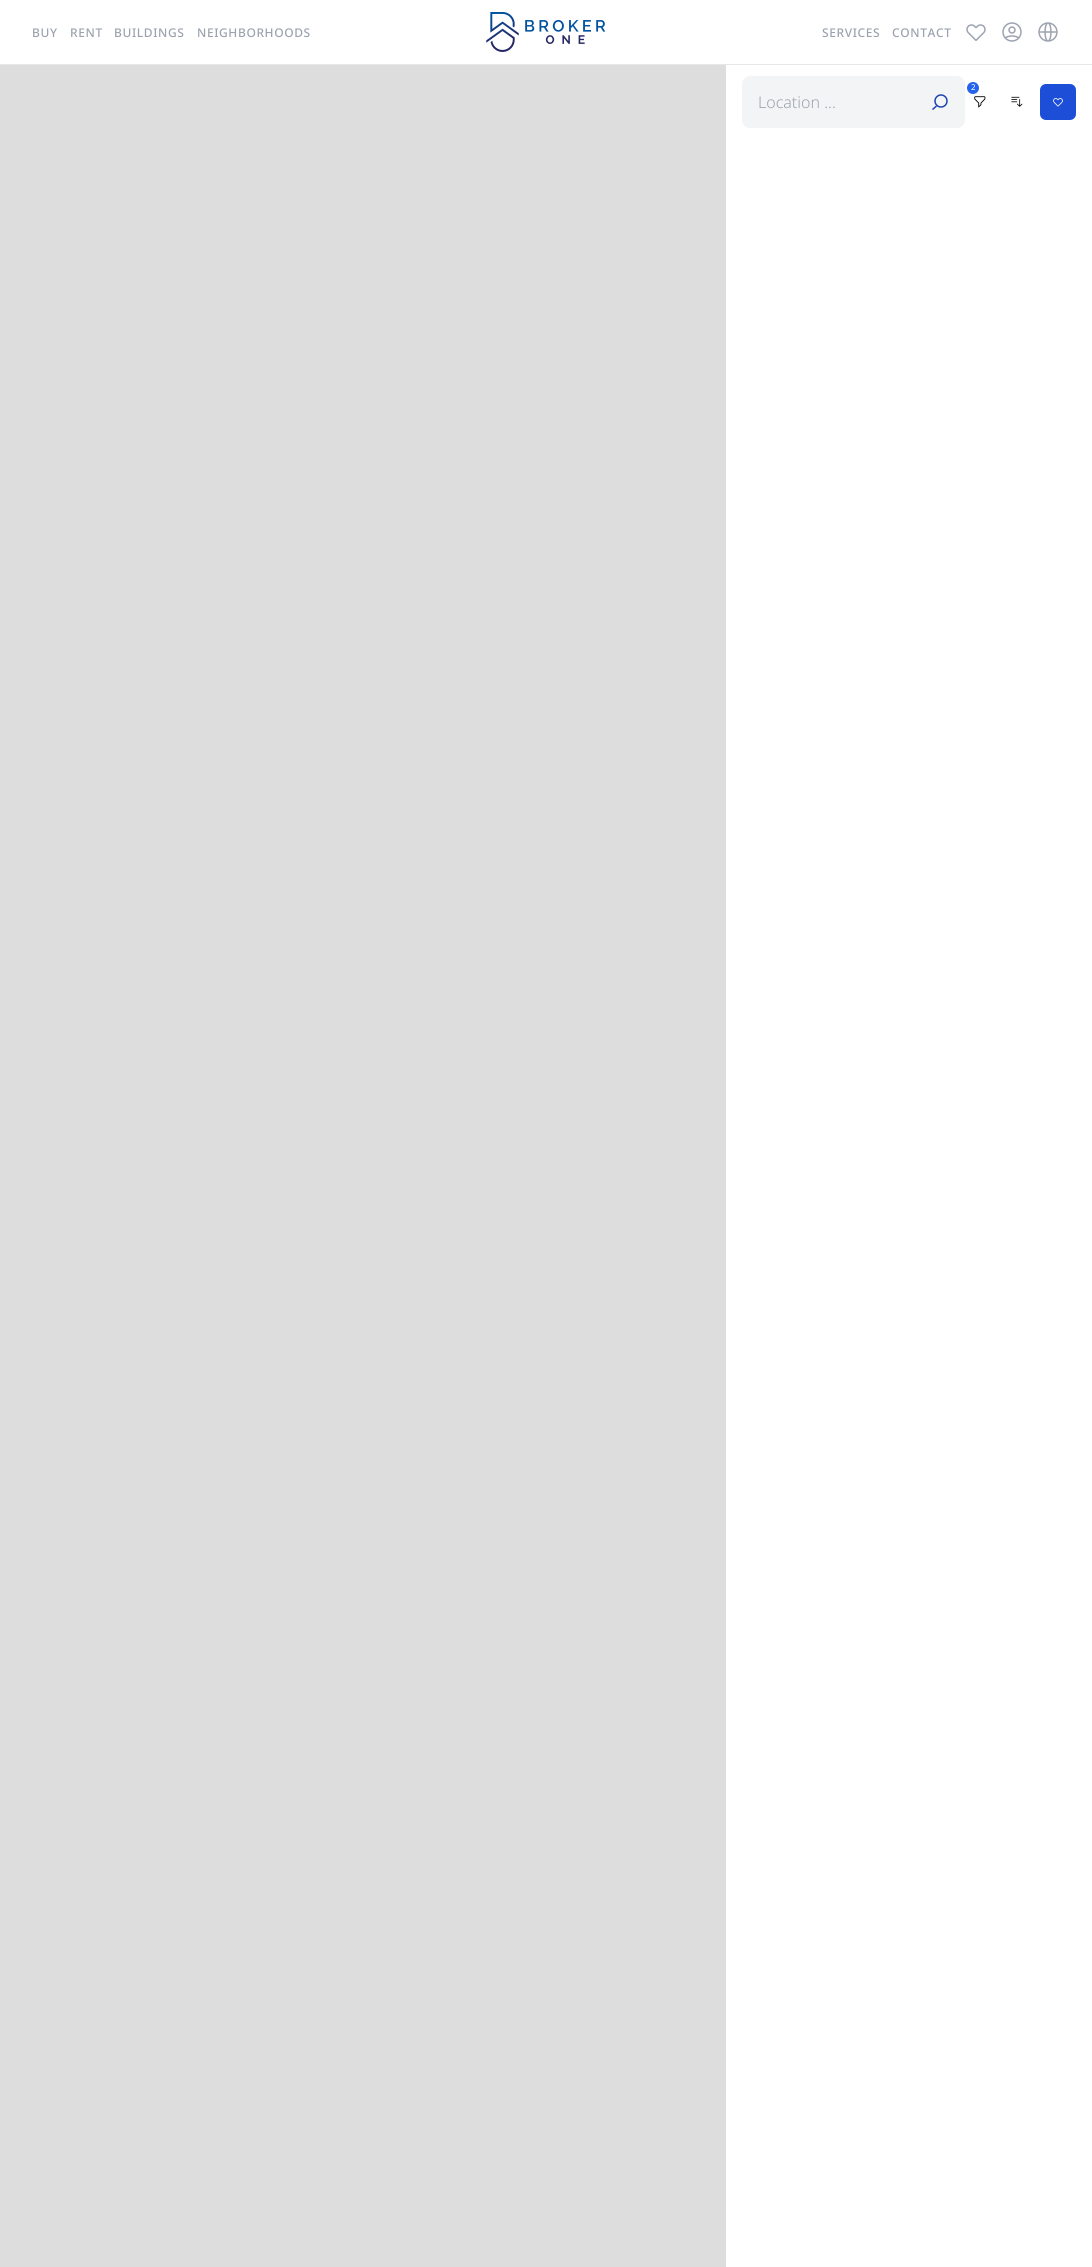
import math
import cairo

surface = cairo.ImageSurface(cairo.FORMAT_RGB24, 1092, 2267)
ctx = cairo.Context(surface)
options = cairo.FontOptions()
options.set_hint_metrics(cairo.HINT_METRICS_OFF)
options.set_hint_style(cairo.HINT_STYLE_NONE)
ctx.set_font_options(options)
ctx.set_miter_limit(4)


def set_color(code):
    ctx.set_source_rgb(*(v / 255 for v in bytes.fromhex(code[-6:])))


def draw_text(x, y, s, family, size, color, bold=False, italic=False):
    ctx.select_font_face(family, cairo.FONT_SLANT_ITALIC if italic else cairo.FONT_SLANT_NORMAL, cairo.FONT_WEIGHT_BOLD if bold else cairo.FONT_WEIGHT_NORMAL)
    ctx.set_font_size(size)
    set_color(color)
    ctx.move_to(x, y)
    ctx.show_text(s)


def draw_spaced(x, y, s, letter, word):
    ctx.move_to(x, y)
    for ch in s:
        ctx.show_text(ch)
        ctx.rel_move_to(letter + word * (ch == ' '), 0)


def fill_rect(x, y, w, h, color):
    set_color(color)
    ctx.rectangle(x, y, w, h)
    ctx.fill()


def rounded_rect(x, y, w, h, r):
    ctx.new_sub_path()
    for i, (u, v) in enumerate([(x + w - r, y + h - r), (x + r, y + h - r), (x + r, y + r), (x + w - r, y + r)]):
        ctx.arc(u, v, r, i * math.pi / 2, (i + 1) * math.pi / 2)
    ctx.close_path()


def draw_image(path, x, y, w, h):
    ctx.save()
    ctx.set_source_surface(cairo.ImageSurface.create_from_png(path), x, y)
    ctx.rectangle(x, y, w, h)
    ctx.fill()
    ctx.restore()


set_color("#ffffff")
ctx.paint()
fill_rect(0, 64, 1092, 1, "#e5e7eb")
ctx.select_font_face("Noto Sans Medium")
ctx.set_font_size(12)
set_color("#9ca3af")
draw_spaced(32, 37, "BUY", 0.6, 0)
draw_spaced(70, 37, "RENT", 0.6, 0)
draw_spaced(114, 37, "BUILDINGS", 0.6, 0)
draw_spaced(197, 37, "NEIGHBORHOODS", 0.6, 0)
draw_image("assets/img1.png", 486, 12, 120, 40)
draw_spaced(822, 37, "SERVICES", 0.6, 0)
draw_spaced(892, 37, "CONTACT", 0.6, 0)
draw_image("assets/img2.png", 966, 24, 20, 17)
draw_image("assets/img3.png", 1002, 22, 20, 20)
draw_image("assets/img4.png", 1038, 22, 20, 20)
fill_rect(0, 65, 726, 2202, "#dddddd")
set_color("#2563eb")
ctx.arc(973, 88, 6, 0, 2 * math.pi)
ctx.fill()
draw_text(971, 90, "2", "Noto Sans", 8, "#ffffff")
draw_image("assets/img5.png", 974, 96, 12, 12)
draw_image("assets/img6.png", 1011, 96, 12, 11)
set_color("#1d4ed8")
rounded_rect(1040, 84, 36, 36, 6)
ctx.fill()
draw_image("assets/img7.png", 1053, 98, 10, 9)
set_color("#f3f4f6")
rounded_rect(742, 76, 223, 52, 8)
ctx.fill()
draw_text(758, 108, "Location ...", "Noto Sans Light", 16, "#9ca3af")
ctx.new_path()
ctx.move_to(932.5, 109.5)
ctx.line_to(936.5, 106)
set_color("#1d44af")
ctx.set_line_width(1.5)
ctx.stroke()
ctx.arc(941, 101, 6, 0, 2 * math.pi)
set_color("#1c43ad")
ctx.stroke()
surface.write_to_png("output.png")
